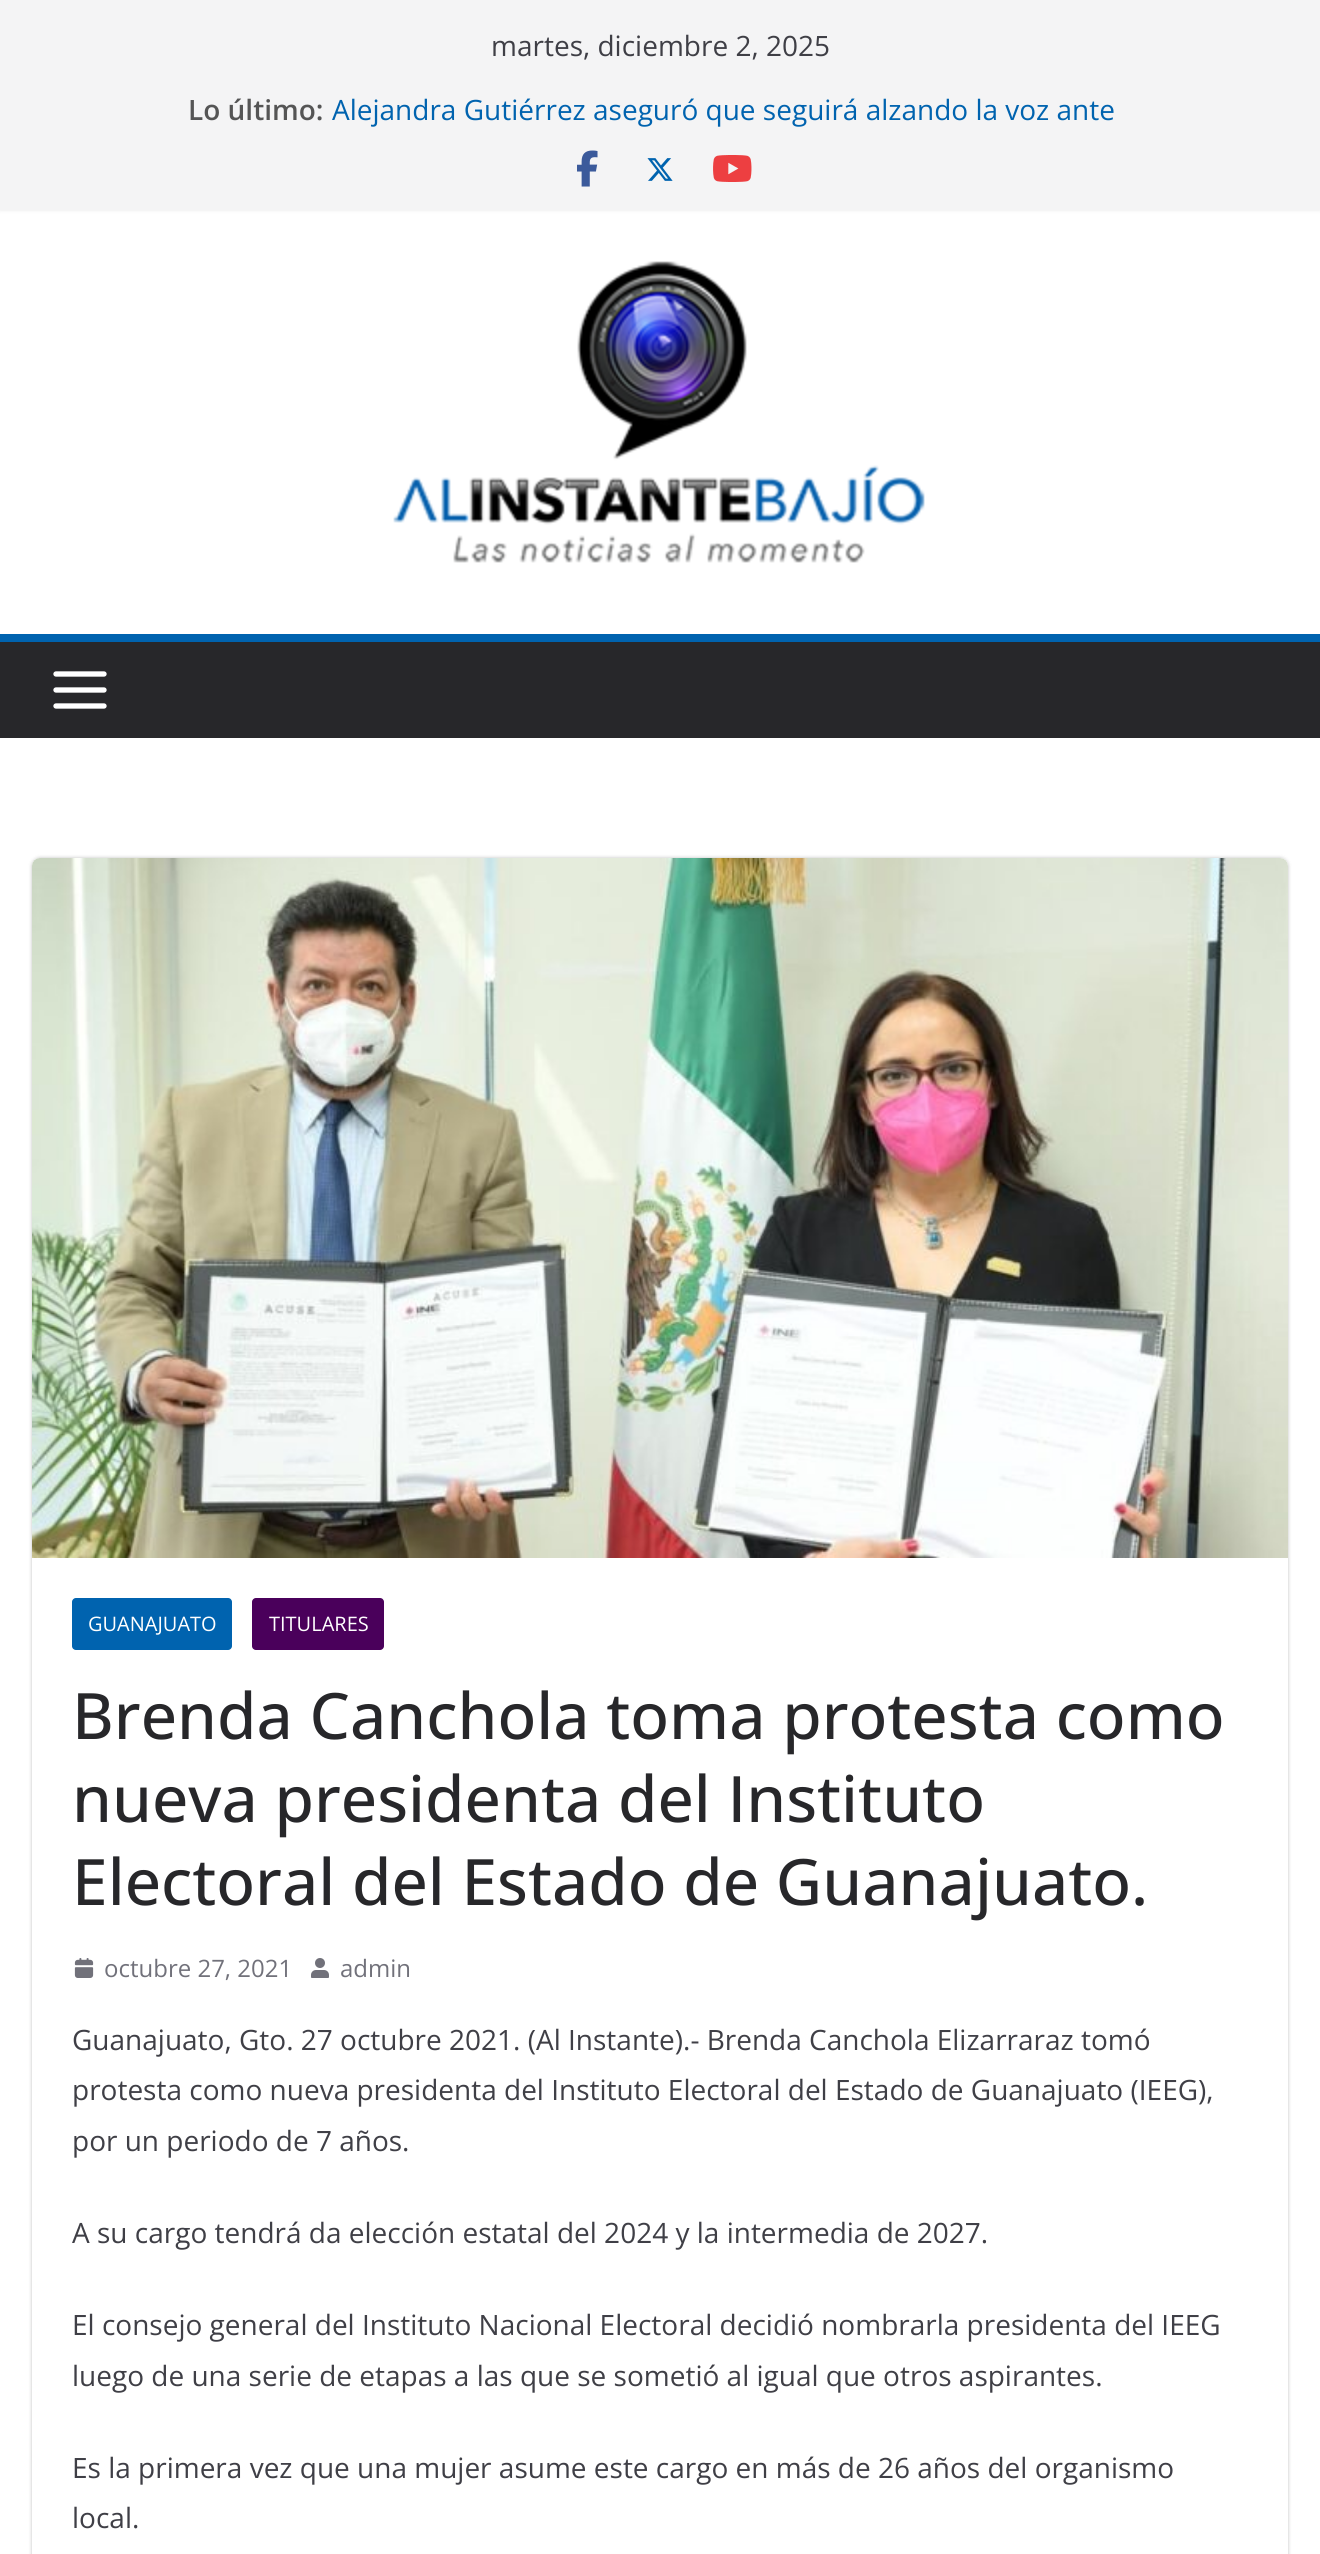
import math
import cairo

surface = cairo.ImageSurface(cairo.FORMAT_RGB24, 1320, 2554)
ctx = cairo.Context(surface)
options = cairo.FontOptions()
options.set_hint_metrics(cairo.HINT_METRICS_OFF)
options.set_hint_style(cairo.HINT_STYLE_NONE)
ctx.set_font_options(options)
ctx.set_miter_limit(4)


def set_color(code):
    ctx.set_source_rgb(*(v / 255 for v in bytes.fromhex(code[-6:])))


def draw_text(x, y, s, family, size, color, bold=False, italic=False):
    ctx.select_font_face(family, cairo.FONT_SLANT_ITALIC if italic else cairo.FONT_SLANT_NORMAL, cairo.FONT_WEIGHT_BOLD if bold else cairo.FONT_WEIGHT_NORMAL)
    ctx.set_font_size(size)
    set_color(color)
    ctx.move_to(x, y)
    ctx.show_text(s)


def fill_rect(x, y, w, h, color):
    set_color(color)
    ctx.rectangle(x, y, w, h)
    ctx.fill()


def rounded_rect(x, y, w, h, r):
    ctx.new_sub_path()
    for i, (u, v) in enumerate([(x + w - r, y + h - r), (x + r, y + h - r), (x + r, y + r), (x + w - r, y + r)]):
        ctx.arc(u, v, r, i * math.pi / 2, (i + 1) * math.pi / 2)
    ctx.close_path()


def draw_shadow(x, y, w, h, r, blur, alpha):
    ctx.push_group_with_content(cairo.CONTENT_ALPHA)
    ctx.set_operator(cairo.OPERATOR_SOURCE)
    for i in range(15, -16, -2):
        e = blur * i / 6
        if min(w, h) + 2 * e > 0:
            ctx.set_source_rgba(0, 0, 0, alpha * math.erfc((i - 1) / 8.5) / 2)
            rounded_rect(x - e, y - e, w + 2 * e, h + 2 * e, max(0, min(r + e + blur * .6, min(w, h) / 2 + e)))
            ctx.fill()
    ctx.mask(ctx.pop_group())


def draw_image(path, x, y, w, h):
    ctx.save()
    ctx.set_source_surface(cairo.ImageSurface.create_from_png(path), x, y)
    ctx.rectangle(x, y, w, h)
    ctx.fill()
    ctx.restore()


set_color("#ffffff")
ctx.paint()
set_color("#000000")
draw_shadow(0, 0, 1320, 210, 0, 2, 0.1)
fill_rect(0, 0, 1320, 210, "#f4f4f5")
draw_text(491, 56, "martes, diciembre 2, 2025", "Open Sans", 28, "#3f3f46")
draw_text(188, 120, "Lo último:", "Open Sans SemiBold", 28, "#555555")
draw_text(332, 120, "Alejandra Gutiérrez aseguró que seguirá alzando la voz ante", "Open Sans", 28, "#0063af")
draw_image("assets/img1.png", 577, 150, 21, 37)
draw_image("assets/img2.png", 647, 158, 26, 23)
draw_image("assets/img3.png", 713, 155, 39, 27)
draw_image("assets/img4.png", 393, 261, 532, 302)
fill_rect(0, 642, 1320, 96, "#27272a")
fill_rect(0, 634, 1320, 8, "#0063af")
draw_image("assets/img5.png", 53, 671, 54, 38)
ctx.save()
ctx.set_fill_rule(cairo.FILL_RULE_EVEN_ODD)
ctx.new_path()
ctx.move_to(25, 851)
ctx.line_to(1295, 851)
ctx.line_to(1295, 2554)
ctx.line_to(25, 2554)
ctx.close_path()
ctx.move_to(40, 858)
ctx.line_to(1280, 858)
ctx.curve_to(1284.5, 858, 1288, 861.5, 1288, 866)
ctx.line_to(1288, 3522)
ctx.curve_to(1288, 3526.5, 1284.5, 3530, 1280, 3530)
ctx.line_to(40, 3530)
ctx.curve_to(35.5, 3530, 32, 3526.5, 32, 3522)
ctx.line_to(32, 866)
ctx.curve_to(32, 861.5, 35.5, 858, 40, 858)
ctx.close_path()
ctx.clip()
set_color("#000000")
draw_shadow(32, 858, 1256, 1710, 8, 2, 0.24)
ctx.restore()
draw_image("assets/img6.png", 32, 858, 1256, 700)
rounded_rect(72, 1598, 160, 52, 4)
ctx.fill()
draw_text(88, 1631, "GUANAJUATO", "Open Sans", 20, "#ffffff")
set_color("#4a005b")
rounded_rect(252, 1598, 132, 52, 4)
ctx.fill()
draw_text(269, 1631, "TITULARES", "Open Sans", 20, "#ffffff")
draw_text(72, 1739, "Brenda Canchola toma protesta como", "Open Sans Medium", 64, "#27272a")
draw_text(72, 1822, "nueva presidenta del Instituto", "Open Sans Medium", 64, "#27272a")
draw_text(72, 1905, "Electoral del Estado de Guanajuato.", "Open Sans Medium", 64, "#27272a")
draw_image("assets/img7.png", 74, 1958, 20, 20)
draw_text(104, 1977, "octubre 27, 2021", "Open Sans", 24, "#71717a")
draw_image("assets/img8.png", 311, 1958, 18, 20)
draw_text(340, 1977, "admin", "Open Sans", 24, "#71717a")
draw_text(72, 2050, "Guanajuato, Gto. 27 octubre 2021. (Al Instante).- Brenda Canchola Elizarraraz tomó", "Open Sans", 28, "#3f3f46")
draw_text(72, 2100, "protesta como nueva presidenta del Instituto Electoral del Estado de Guanajuato (IEEG),", "Open Sans", 28, "#3f3f46")
draw_text(72, 2151, "por un periodo de 7 años.", "Open Sans", 28, "#3f3f46")
draw_text(72, 2243, "A su cargo tendrá da elección estatal del 2024 y la intermedia de 2027.", "Open Sans", 28, "#3f3f46")
draw_text(72, 2335, "El consejo general del Instituto Nacional Electoral decidió nombrarla presidenta del IEEG", "Open Sans", 28, "#3f3f46")
draw_text(72, 2386, "luego de una serie de etapas a las que se sometió al igual que otros aspirantes.", "Open Sans", 28, "#3f3f46")
draw_text(72, 2478, "Es la primera vez que una mujer asume este cargo en más de 26 años del organismo", "Open Sans", 28, "#3f3f46")
draw_text(72, 2528, "local.", "Open Sans", 28, "#3f3f46")
surface.write_to_png("output.png")
